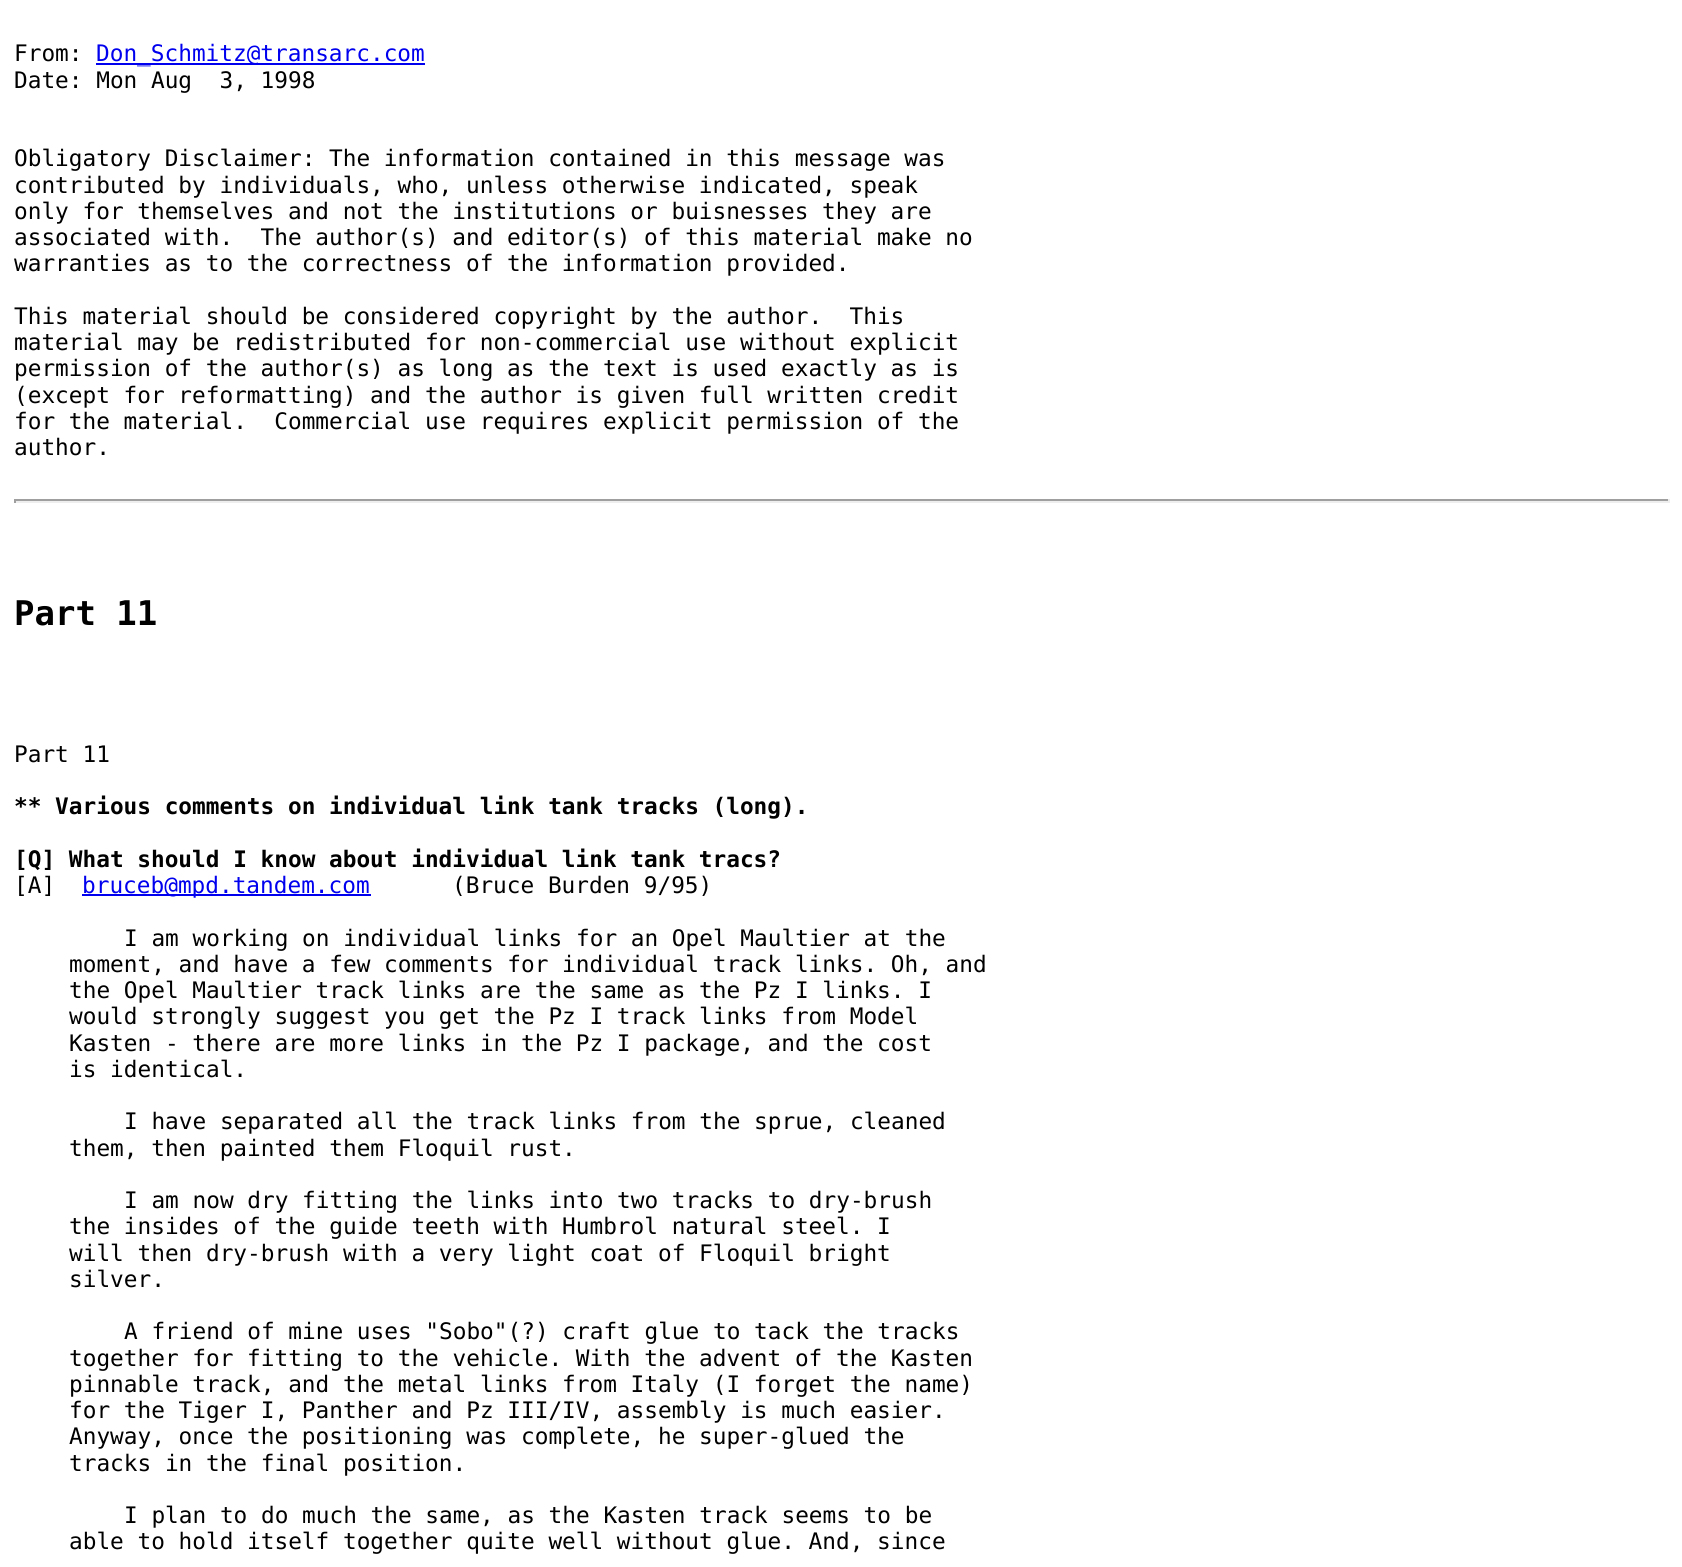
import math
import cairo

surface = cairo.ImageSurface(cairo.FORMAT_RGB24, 1682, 1567)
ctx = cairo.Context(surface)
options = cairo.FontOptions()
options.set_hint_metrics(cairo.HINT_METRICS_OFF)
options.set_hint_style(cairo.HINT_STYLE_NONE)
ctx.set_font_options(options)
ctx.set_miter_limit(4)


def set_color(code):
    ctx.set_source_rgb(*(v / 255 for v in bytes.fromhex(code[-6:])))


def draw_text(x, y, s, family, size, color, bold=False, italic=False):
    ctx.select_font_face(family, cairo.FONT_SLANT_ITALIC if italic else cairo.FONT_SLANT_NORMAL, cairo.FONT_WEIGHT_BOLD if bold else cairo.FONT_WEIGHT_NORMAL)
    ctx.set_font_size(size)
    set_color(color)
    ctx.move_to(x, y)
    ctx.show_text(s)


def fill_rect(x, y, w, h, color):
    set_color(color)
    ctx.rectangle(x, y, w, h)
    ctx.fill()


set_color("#ffffff")
ctx.paint()
draw_text(14, 61, "From:", "DejaVu Sans Mono", 22.75, "#000000")
fill_rect(96, 63, 329, 2, "#0000ee")
draw_text(96, 61, "Don_Schmitz@transarc.com", "DejaVu Sans Mono", 22.75, "#0000ee")
draw_text(14, 88, "Date: Mon Aug  3, 1998", "DejaVu Sans Mono", 22.75, "#000000")
draw_text(14, 166, "Obligatory Disclaimer: The information contained in this message was", "DejaVu Sans Mono", 22.75, "#000000")
draw_text(14, 193, "contributed by individuals, who, unless otherwise indicated, speak", "DejaVu Sans Mono", 22.75, "#000000")
draw_text(14, 219, "only for themselves and not the institutions or buisnesses they are", "DejaVu Sans Mono", 22.75, "#000000")
draw_text(14, 245, "associated with.  The author(s) and editor(s) of this material make no", "DejaVu Sans Mono", 22.75, "#000000")
draw_text(14, 271, "warranties as to the correctness of the information provided.", "DejaVu Sans Mono", 22.75, "#000000")
draw_text(14, 324, "This material should be considered copyright by the author.  This", "DejaVu Sans Mono", 22.75, "#000000")
draw_text(14, 350, "material may be redistributed for non-commercial use without explicit", "DejaVu Sans Mono", 22.75, "#000000")
draw_text(14, 376, "permission of the author(s) as long as the text is used exactly as is", "DejaVu Sans Mono", 22.75, "#000000")
draw_text(14, 403, "(except for reformatting) and the author is given full written credit", "DejaVu Sans Mono", 22.75, "#000000")
draw_text(14, 429, "for the material.  Commercial use requires explicit permission of the", "DejaVu Sans Mono", 22.75, "#000000")
draw_text(14, 455, "author.", "DejaVu Sans Mono", 22.75, "#000000")
fill_rect(14, 499, 1656, 2, "#9f9f9f")
fill_rect(1668, 499, 2, 4, "#eeeeee")
fill_rect(14, 501, 1656, 2, "#eeeeee")
fill_rect(14, 499, 2, 4, "#9f9f9f")
draw_text(14, 625, "Part 11", "DejaVu Sans Mono", 34, "#000000", bold=True)
draw_text(14, 762, "Part 11", "DejaVu Sans Mono", 22.75, "#000000")
draw_text(14, 814, "** Various comments on individual link tank tracks (long).", "DejaVu Sans Mono", 22.75, "#000000", bold=True)
draw_text(14, 867, "[Q] What should I know about individual link tank tracs?", "DejaVu Sans Mono", 22.75, "#000000", bold=True)
draw_text(14, 893, "[A]", "DejaVu Sans Mono", 22.75, "#000000")
fill_rect(82, 894, 289, 2, "#0000ee")
draw_text(82, 893, "bruceb@mpd.tandem.com", "DejaVu Sans Mono", 22.75, "#0000ee")
draw_text(452, 893, "(Bruce Burden 9/95)", "DejaVu Sans Mono", 22.75, "#000000")
draw_text(124, 946, "I am working on individual links for an Opel Maultier at the", "DejaVu Sans Mono", 22.75, "#000000")
draw_text(69, 972, "moment, and have a few comments for individual track links. Oh, and", "DejaVu Sans Mono", 22.75, "#000000")
draw_text(69, 998, "the Opel Maultier track links are the same as the Pz I links. I", "DejaVu Sans Mono", 22.75, "#000000")
draw_text(69, 1024, "would strongly suggest you get the Pz I track links from Model", "DejaVu Sans Mono", 22.75, "#000000")
draw_text(69, 1051, "Kasten - there are more links in the Pz I package, and the cost", "DejaVu Sans Mono", 22.75, "#000000")
draw_text(69, 1077, "is identical.", "DejaVu Sans Mono", 22.75, "#000000")
draw_text(124, 1129, "I have separated all the track links from the sprue, cleaned", "DejaVu Sans Mono", 22.75, "#000000")
draw_text(69, 1156, "them, then painted them Floquil rust.", "DejaVu Sans Mono", 22.75, "#000000")
draw_text(124, 1208, "I am now dry fitting the links into two tracks to dry-brush", "DejaVu Sans Mono", 22.75, "#000000")
draw_text(69, 1234, "the insides of the guide teeth with Humbrol natural steel. I", "DejaVu Sans Mono", 22.75, "#000000")
draw_text(69, 1261, "will then dry-brush with a very light coat of Floquil bright", "DejaVu Sans Mono", 22.75, "#000000")
draw_text(69, 1287, "silver.", "DejaVu Sans Mono", 22.75, "#000000")
draw_text(124, 1339, "A friend of mine uses \"Sobo\"(?) craft glue to tack the tracks", "DejaVu Sans Mono", 22.75, "#000000")
draw_text(69, 1366, "together for fitting to the vehicle. With the advent of the Kasten", "DejaVu Sans Mono", 22.75, "#000000")
draw_text(69, 1392, "pinnable track, and the metal links from Italy (I forget the name)", "DejaVu Sans Mono", 22.75, "#000000")
draw_text(69, 1418, "for the Tiger I, Panther and Pz III/IV, assembly is much easier.", "DejaVu Sans Mono", 22.75, "#000000")
draw_text(69, 1444, "Anyway, once the positioning was complete, he super-glued the", "DejaVu Sans Mono", 22.75, "#000000")
draw_text(69, 1471, "tracks in the final position.", "DejaVu Sans Mono", 22.75, "#000000")
draw_text(124, 1523, "I plan to do much the same, as the Kasten track seems to be", "DejaVu Sans Mono", 22.75, "#000000")
draw_text(69, 1549, "able to hold itself together quite well without glue. And, since", "DejaVu Sans Mono", 22.75, "#000000")
surface.write_to_png("output.png")
